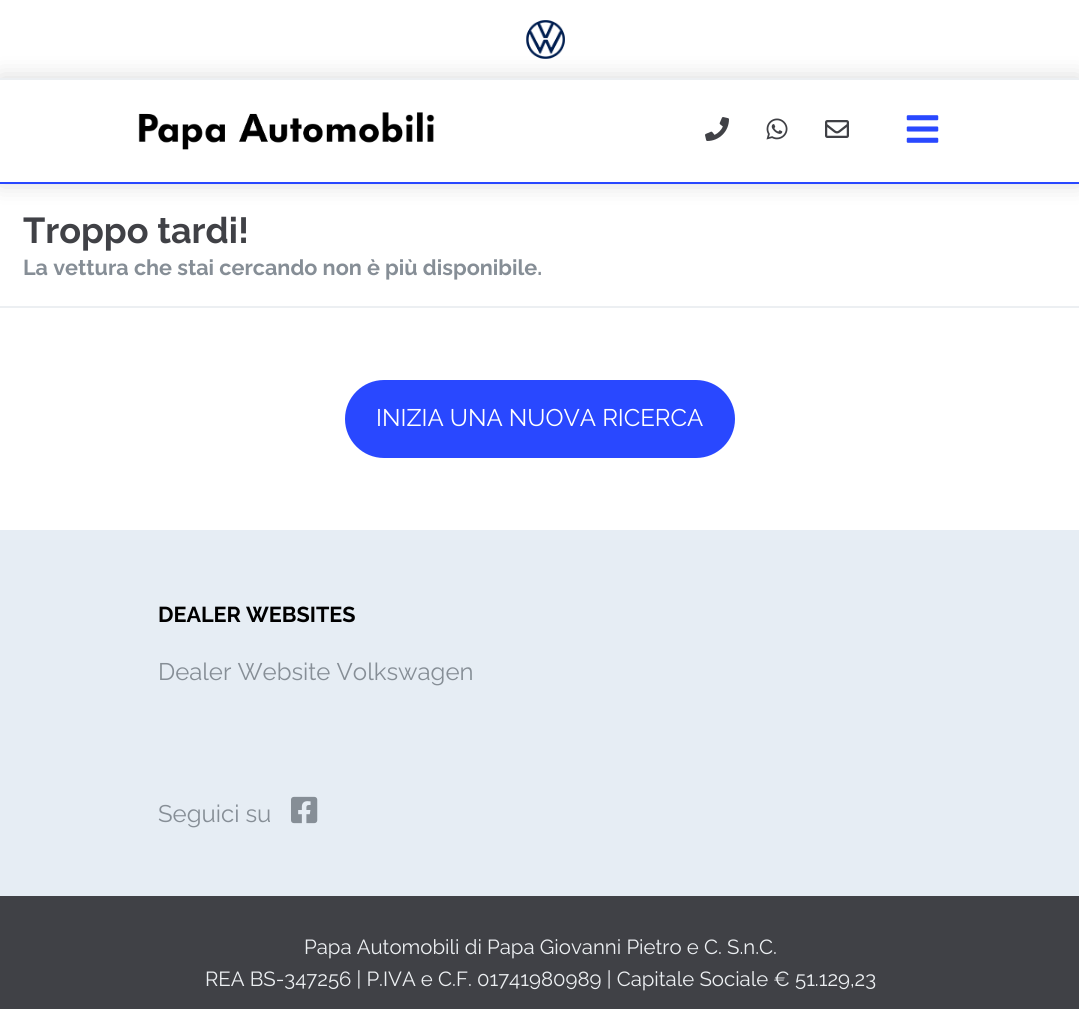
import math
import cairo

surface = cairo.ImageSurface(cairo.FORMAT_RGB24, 1079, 1009)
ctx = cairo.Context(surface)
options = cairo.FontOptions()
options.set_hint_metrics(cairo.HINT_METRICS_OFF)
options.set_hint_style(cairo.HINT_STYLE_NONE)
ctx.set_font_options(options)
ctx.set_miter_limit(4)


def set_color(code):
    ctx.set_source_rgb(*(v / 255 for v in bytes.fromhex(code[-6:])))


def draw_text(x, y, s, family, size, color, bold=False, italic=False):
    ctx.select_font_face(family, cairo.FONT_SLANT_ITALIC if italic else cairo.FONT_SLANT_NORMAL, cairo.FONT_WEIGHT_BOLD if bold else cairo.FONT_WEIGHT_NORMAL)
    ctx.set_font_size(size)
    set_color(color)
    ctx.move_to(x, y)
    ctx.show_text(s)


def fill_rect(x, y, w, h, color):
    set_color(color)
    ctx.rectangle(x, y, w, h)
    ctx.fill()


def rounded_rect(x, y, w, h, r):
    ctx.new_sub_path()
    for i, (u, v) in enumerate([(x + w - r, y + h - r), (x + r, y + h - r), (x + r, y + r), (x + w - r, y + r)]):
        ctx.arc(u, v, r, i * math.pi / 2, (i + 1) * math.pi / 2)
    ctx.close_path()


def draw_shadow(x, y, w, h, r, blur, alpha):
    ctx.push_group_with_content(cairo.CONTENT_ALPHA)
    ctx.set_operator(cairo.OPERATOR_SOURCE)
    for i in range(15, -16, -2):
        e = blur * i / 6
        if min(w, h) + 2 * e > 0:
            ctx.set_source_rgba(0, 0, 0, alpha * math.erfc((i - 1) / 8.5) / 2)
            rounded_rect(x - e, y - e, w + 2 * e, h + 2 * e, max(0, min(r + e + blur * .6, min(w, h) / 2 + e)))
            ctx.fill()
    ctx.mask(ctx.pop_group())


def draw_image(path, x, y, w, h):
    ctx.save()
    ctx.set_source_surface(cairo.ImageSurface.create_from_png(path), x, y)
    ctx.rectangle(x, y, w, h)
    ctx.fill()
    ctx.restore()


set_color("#ffffff")
ctx.paint()
draw_image("assets/img1.png", 526, 20, 39, 39)
ctx.save()
ctx.set_fill_rule(cairo.FILL_RULE_EVEN_ODD)
ctx.new_path()
ctx.move_to(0, 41)
ctx.line_to(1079, 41)
ctx.line_to(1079, 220)
ctx.line_to(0, 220)
ctx.close_path()
ctx.move_to(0, 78)
ctx.line_to(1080, 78)
ctx.line_to(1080, 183)
ctx.line_to(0, 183)
ctx.close_path()
ctx.clip()
set_color("#000000")
draw_shadow(0, 78, 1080, 105, 0, 12, 0.15)
ctx.restore()
fill_rect(0, 78, 1079, 2, "#eceff2")
fill_rect(0, 182, 1079, 2, "#2948ff")
draw_image("assets/img2.png", 138, 112, 297, 38)
draw_image("assets/img3.png", 705, 117, 24, 24)
draw_image("assets/img4.png", 766, 118, 22, 22)
draw_image("assets/img5.png", 825, 120, 24, 18)
draw_image("assets/img6.png", 906, 115, 33, 28)
fill_rect(0, 306, 1079, 2, "#eceff2")
draw_text(23, 243, "Troppo tardi!", "Raleway", 36, "#404146", bold=True)
draw_text(23, 275, "La vettura che stai cercando non è più disponibile.", "Raleway", 21.6, "#868e96", bold=True)
set_color("#2948ff")
rounded_rect(346, 381, 388, 76, 38)
ctx.fill_preserve()
ctx.stroke()
draw_text(376, 426, "INIZIA UNA NUOVA RICERCA", "Raleway", 24, "#ffffff")
fill_rect(0, 530, 1079, 366, "#e6edf4")
draw_text(158, 622, "DEALER WEBSITES", "Raleway", 21.6, "#000000", bold=True)
draw_text(158, 680, "Dealer Website Volkswagen", "Raleway", 24, "#868e96")
draw_text(158, 822, "Seguici su", "Raleway", 24, "#868e96")
draw_image("assets/img7.png", 291, 796, 27, 28)
fill_rect(0, 896, 1079, 113, "#404146")
draw_text(304, 954, "Papa Automobili di Papa Giovanni Pietro e C. S.n.C.", "Raleway", 20.4, "#eceff2")
draw_text(205, 986, "REA BS-347256 | P.IVA e C.F. 01741980989 | Capitale Sociale € 51.129,23", "Raleway", 20.4, "#eceff2")
surface.write_to_png("output.png")
